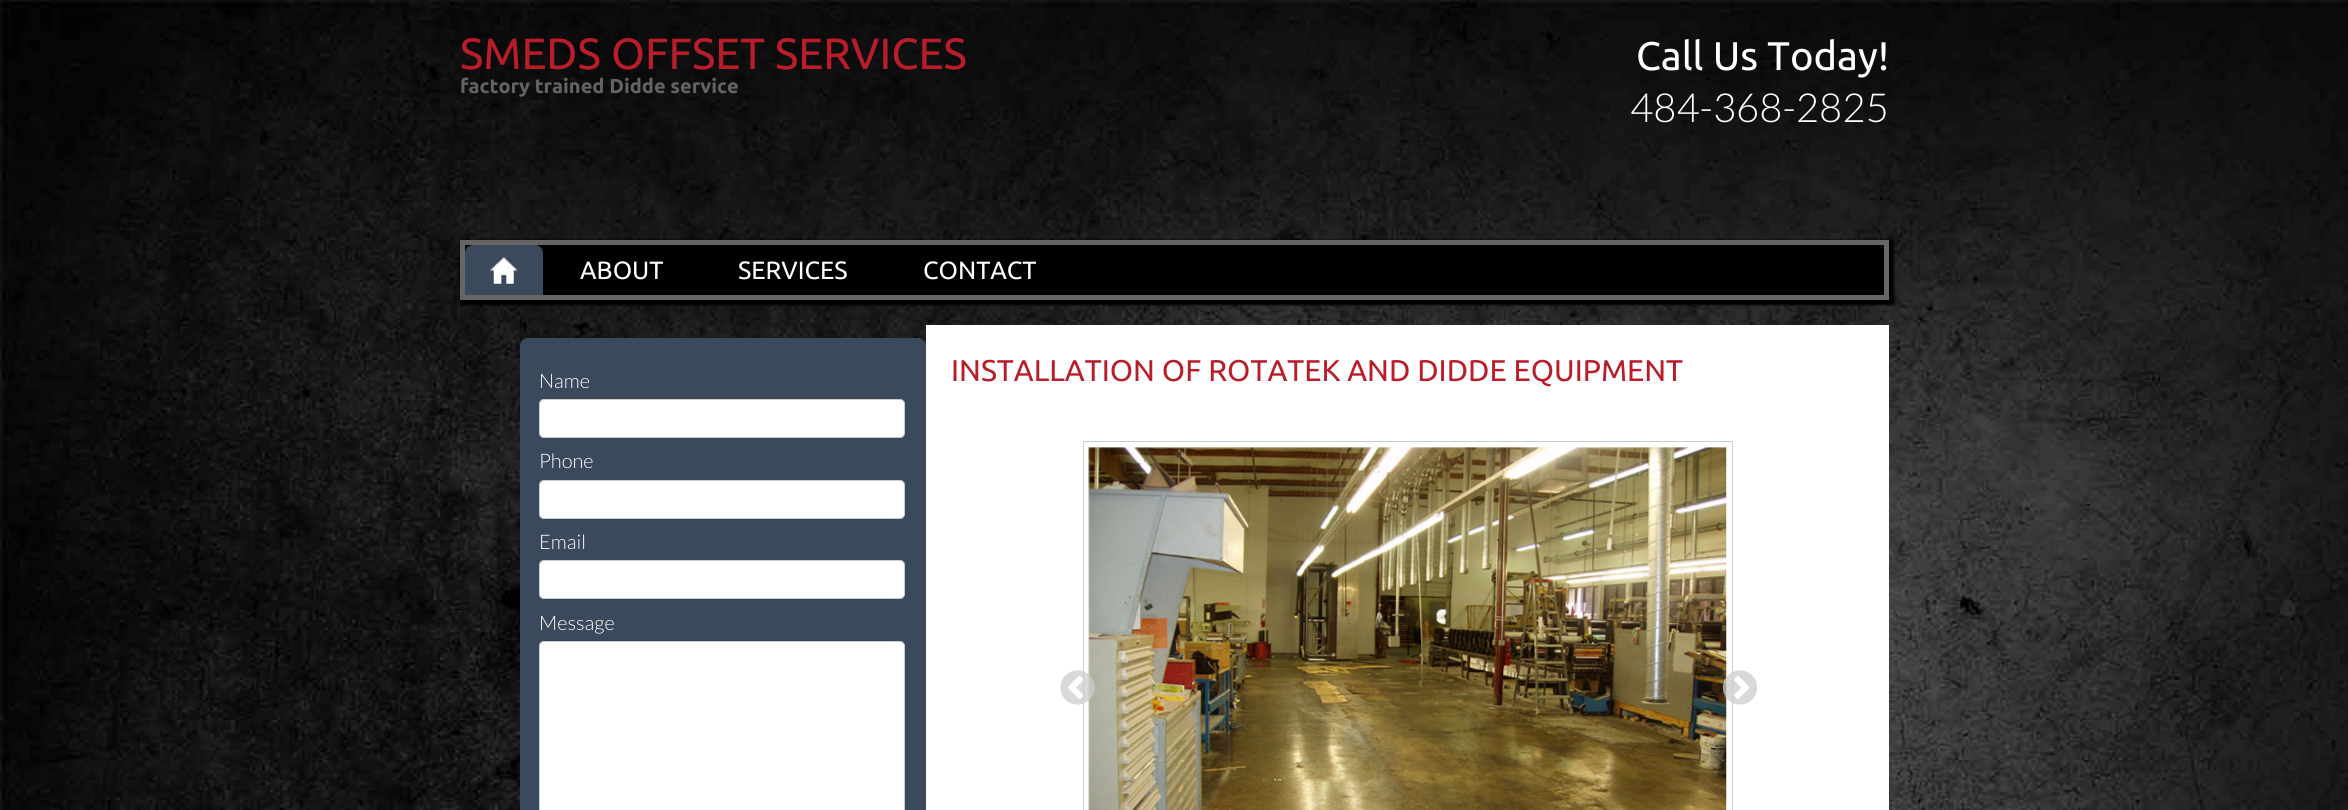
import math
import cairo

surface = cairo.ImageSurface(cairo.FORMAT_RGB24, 2348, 810)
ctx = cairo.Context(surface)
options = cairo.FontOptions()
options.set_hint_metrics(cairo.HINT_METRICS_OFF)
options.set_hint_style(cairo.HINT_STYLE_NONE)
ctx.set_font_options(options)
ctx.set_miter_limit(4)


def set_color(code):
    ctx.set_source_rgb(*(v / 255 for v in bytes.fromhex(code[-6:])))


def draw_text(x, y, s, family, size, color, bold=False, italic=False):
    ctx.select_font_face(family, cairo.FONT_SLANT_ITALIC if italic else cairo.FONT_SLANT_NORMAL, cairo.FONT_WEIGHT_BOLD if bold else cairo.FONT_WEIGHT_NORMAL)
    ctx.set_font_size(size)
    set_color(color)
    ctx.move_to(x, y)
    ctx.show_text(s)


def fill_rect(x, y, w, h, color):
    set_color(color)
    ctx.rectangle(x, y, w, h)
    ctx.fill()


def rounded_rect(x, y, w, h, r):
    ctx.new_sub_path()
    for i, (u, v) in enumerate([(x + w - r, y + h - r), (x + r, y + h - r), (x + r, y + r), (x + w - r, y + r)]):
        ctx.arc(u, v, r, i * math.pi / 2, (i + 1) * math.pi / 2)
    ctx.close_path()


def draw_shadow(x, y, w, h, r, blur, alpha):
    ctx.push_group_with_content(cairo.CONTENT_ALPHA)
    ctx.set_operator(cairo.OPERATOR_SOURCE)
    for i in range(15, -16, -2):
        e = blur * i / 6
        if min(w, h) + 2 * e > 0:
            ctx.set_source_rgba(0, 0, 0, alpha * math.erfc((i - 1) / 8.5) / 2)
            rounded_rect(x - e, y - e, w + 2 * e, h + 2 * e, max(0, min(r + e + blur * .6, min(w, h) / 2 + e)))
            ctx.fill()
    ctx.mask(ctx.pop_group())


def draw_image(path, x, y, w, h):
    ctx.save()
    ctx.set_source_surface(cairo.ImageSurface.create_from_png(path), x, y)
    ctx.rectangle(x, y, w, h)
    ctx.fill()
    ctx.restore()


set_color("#ffffff")
ctx.paint()
draw_image("assets/img1.png", 0, 0, 2348, 810)
draw_text(460, 69, "SMEDS OFFSET SERVICES", "Ubuntu", 43.75, "#b91d2a")
draw_text(460, 93, "factory trained Didde service", "Ubuntu", 20, "#626366", bold=True)
draw_text(1636, 70, "Call Us Today!", "Ubuntu", 40, "#ffffff")
draw_text(1630, 122, "484-368-2825", "Lato Light", 40, "#ffffff")
set_color("#000000")
draw_shadow(460, 240, 1434, 65, 0, 1, 1)
ctx.rectangle(462.5, 242.5, 1424, 55)
set_color("#666666")
ctx.set_line_width(5)
ctx.stroke()
set_color("#3a495b")
ctx.new_path()
ctx.move_to(473, 245)
ctx.line_to(535, 245)
ctx.curve_to(539.5, 245, 543, 248.5, 543, 253)
ctx.line_to(543, 295)
ctx.line_to(465, 295)
ctx.line_to(465, 253)
ctx.curve_to(465, 248.5, 468.5, 245, 473, 245)
ctx.close_path()
ctx.fill()
draw_image("assets/img2.png", 490, 257, 28, 27)
draw_text(580, 279, "ABOUT", "Ubuntu", 25, "#ffffff")
draw_text(738, 279, "SERVICES", "Ubuntu", 25, "#ffffff")
draw_text(923, 279, "CONTACT", "Ubuntu", 25, "#ffffff")
set_color("#3a495b")
rounded_rect(520, 338, 406, 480, 8)
ctx.fill()
draw_text(539, 388, "Name", "Lato Light", 20, "#ffffff")
rounded_rect(539.5, 399.5, 365, 38, 4.5)
ctx.fill_preserve()
set_color("#cbccce")
ctx.set_line_width(1)
ctx.stroke()
draw_text(539, 468, "Phone", "Lato Light", 20, "#ffffff")
rounded_rect(539.5, 480.5, 365, 38, 4.5)
ctx.fill_preserve()
set_color("#cbccce")
ctx.stroke()
draw_text(539, 549, "Email", "Lato Light", 20, "#ffffff")
rounded_rect(539.5, 560.5, 365, 38, 4.5)
ctx.fill_preserve()
set_color("#cbccce")
ctx.stroke()
draw_text(539, 630, "Message", "Lato Light", 20, "#ffffff")
rounded_rect(539.5, 641.5, 365, 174, 4.5)
ctx.fill_preserve()
set_color("#cbccce")
ctx.stroke()
fill_rect(926, 325, 963, 485, "#ffffff")
draw_text(951, 381, "INSTALLATION OF ROTATEK AND DIDDE EQUIPMENT", "Ubuntu", 30, "#b91d2a")
ctx.rectangle(1083.5, 441.5, 649, 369)
set_color("#cbccce")
ctx.stroke()
draw_image("assets/img4.png", 1088, 447, 639, 363)
draw_image("assets/img3.png", 1060, 670, 35, 35)
draw_image("assets/img5.png", 1722, 670, 35, 35)
surface.write_to_png("output.png")
